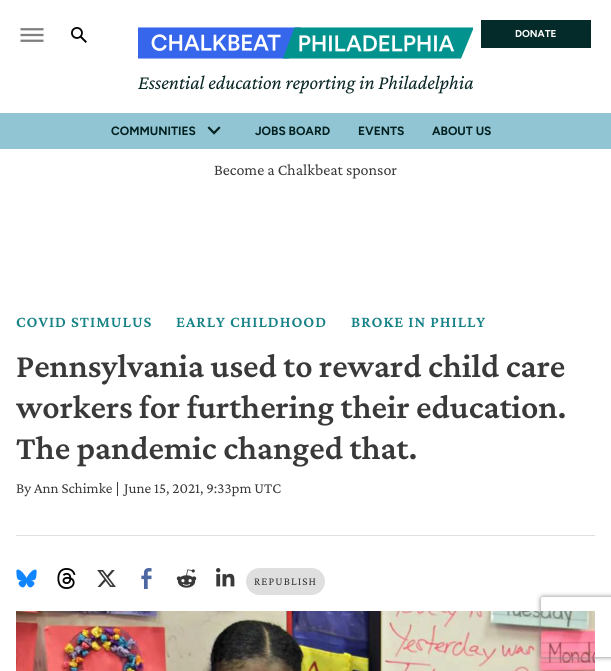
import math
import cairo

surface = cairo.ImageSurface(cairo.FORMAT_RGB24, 611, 671)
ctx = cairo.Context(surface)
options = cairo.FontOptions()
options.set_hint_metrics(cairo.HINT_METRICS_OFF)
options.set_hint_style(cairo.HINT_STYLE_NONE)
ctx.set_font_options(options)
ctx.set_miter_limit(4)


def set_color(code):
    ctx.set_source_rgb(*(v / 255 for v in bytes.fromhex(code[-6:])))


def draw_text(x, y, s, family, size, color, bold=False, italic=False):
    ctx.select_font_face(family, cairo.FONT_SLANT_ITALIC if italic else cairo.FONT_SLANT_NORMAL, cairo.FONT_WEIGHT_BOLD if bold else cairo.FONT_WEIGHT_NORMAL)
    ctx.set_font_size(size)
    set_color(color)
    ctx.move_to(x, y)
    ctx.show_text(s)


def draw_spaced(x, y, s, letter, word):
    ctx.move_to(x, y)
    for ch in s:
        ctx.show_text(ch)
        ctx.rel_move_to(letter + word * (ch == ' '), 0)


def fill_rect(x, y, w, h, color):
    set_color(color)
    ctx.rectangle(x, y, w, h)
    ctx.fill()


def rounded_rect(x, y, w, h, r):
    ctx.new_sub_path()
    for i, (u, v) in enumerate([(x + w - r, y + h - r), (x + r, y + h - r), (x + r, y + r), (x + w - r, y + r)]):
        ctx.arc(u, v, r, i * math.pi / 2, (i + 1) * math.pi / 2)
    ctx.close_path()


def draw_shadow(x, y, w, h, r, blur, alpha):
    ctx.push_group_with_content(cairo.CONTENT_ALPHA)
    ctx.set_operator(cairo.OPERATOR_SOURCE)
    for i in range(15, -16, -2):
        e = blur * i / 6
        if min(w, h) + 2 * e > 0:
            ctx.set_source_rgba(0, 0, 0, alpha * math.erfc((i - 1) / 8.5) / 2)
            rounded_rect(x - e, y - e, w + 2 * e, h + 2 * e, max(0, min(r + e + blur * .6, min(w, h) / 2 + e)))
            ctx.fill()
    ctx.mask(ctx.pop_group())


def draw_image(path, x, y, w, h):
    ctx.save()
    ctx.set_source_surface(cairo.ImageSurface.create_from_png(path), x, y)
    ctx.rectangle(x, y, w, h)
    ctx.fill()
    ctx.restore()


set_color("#ffffff")
ctx.paint()
draw_image("assets/img1.png", 20, 28, 24, 14)
draw_image("assets/img2.png", 71, 27, 16, 16)
fill_rect(481, 20, 110, 28, "#042b29")
draw_text(515, 37, "DONATE", "Figtree", 10, "#ffffff", bold=True)
draw_image("assets/img3.png", 138, 27, 335, 32)
draw_text(138, 89, "Essential education reporting in Philadelphia", "Crimson Pro", 20, "#072625", italic=True)
fill_rect(0, 113, 611, 36, "#92c5d4")
draw_text(111, 135, "COMMUNITIES", "Figtree", 12, "#012120", bold=True)
draw_image("assets/img4.png", 207, 126, 14, 9)
draw_text(255, 135, "JOBS BOARD", "Figtree", 12, "#012120", bold=True)
draw_text(358, 135, "EVENTS", "Figtree", 12, "#012120", bold=True)
draw_text(432, 135, "ABOUT US", "Figtree", 12, "#012120", bold=True)
draw_text(214, 175, "Become a Chalkbeat sponsor", "Crimson Pro", 16, "#393939")
ctx.select_font_face("Crimson Pro SemiBold")
set_color("#178287")
draw_spaced(16, 327, "COVID STIMULUS", 1, 0)
draw_spaced(176, 327, "EARLY CHILDHOOD", 1, 0)
draw_spaced(351, 327, "BROKE IN PHILLY", 1, 0)
draw_text(16, 377, "Pennsylvania used to reward child care", "Crimson Pro SemiBold", 34, "#393939")
draw_text(16, 418, "workers for furthering their education.", "Crimson Pro SemiBold", 34, "#393939")
draw_text(16, 459, "The pandemic changed that.", "Crimson Pro SemiBold", 34, "#393939")
fill_rect(16, 535, 579, 1, "#dfdfdf")
draw_text(16, 493, "By Ann Schimke", "Crimson Pro", 15, "#393939")
fill_rect(117, 482, 1, 14, "#393939")
draw_text(124, 493, "June 15, 2021, 9:33pm UTC", "Crimson Pro", 15, "#393939")
draw_image("assets/img5.png", 16, 569, 21, 19)
draw_image("assets/img6.png", 57, 568, 19, 21)
draw_image("assets/img7.png", 97, 570, 19, 17)
draw_image("assets/img8.png", 141, 568, 11, 21)
draw_image("assets/img9.png", 176, 569, 21, 19)
draw_image("assets/img10.png", 216, 568, 19, 19)
set_color("#dfdfdf")
rounded_rect(246, 568, 79, 27, 13.5)
ctx.fill()
ctx.set_font_size(11.25)
set_color("#333333")
draw_spaced(254, 585, "REPUBLISH", 1.1, 0)
draw_image("assets/img11.png", 16, 611, 579, 60)
ctx.save()
ctx.set_fill_rule(cairo.FILL_RULE_EVEN_ODD)
ctx.new_path()
ctx.move_to(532, 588)
ctx.line_to(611, 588)
ctx.line_to(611, 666)
ctx.line_to(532, 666)
ctx.close_path()
ctx.move_to(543, 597)
ctx.line_to(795, 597)
ctx.curve_to(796, 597, 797, 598, 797, 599)
ctx.line_to(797, 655)
ctx.curve_to(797, 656, 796, 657, 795, 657)
ctx.line_to(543, 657)
ctx.curve_to(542, 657, 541, 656, 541, 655)
ctx.line_to(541, 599)
ctx.curve_to(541, 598, 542, 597, 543, 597)
ctx.close_path()
ctx.clip()
set_color("#808080")
draw_shadow(541, 597, 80, 60, 2, 2.5, 1)
ctx.restore()
surface.write_to_png("output.png")
